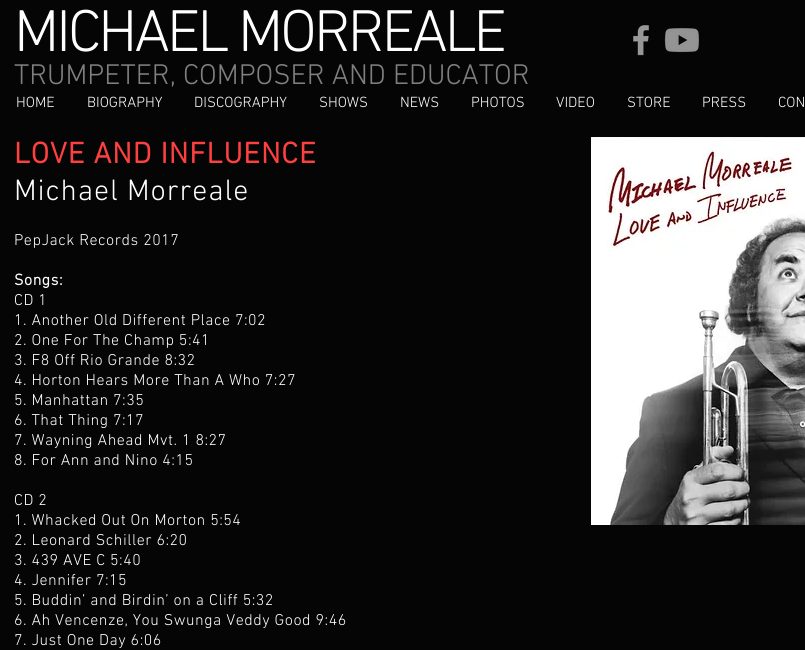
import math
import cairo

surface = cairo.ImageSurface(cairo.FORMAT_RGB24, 805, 650)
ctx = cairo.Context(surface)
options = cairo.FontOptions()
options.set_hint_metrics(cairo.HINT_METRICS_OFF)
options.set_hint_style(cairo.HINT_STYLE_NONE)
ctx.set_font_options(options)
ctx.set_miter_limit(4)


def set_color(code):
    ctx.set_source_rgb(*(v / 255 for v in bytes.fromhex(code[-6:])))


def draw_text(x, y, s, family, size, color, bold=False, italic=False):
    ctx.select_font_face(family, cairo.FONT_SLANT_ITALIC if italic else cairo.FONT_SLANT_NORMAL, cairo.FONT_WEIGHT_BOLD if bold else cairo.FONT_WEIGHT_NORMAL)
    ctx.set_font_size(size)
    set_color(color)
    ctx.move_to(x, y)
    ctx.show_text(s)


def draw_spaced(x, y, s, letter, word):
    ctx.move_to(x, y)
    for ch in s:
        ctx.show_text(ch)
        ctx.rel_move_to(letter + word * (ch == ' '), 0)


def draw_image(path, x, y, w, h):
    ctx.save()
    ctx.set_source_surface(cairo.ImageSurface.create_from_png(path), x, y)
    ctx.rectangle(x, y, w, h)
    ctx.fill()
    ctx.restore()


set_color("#050505")
ctx.paint()
ctx.select_font_face("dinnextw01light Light")
ctx.set_font_size(60)
set_color("#ffffff")
draw_spaced(14, 51, "MICHAEL MORREALE", -3, 0)
draw_image("assets/img1.png", 633, 25, 16, 31)
draw_image("assets/img2.png", 664, 28, 35, 25)
draw_text(14, 84, "TRUMPETER, COMPOSER AND EDUCATOR", "dinnextw01light Light", 29, "#808080")
draw_text(16, 107, "HOME", "dinnextw01light Light", 15, "#ffffff")
draw_text(87, 107, "BIOGRAPHY", "dinnextw01light Light", 15, "#ffffff")
draw_text(194, 107, "DISCOGRAPHY", "dinnextw01light Light", 15, "#ffffff")
draw_text(319, 107, "SHOWS", "dinnextw01light Light", 15, "#ffffff")
draw_text(400, 107, "NEWS", "dinnextw01light Light", 15, "#ffffff")
draw_text(471, 107, "PHOTOS", "dinnextw01light Light", 15, "#ffffff")
draw_text(556, 107, "VIDEO", "dinnextw01light Light", 15, "#ffffff")
draw_text(627, 107, "STORE", "dinnextw01light Light", 15, "#ffffff")
draw_text(702, 107, "PRESS", "dinnextw01light Light", 15, "#ffffff")
draw_text(778, 107, "CON", "dinnextw01light Light", 15, "#ffffff")
ctx.select_font_face("dinnextw01light", cairo.FONT_SLANT_NORMAL, cairo.FONT_WEIGHT_BOLD)
ctx.set_font_size(30)
set_color("#ff4040")
draw_spaced(14, 163, "LOVE AND INFLUENCE", 0.9, 0)
ctx.select_font_face("dinnextw01light Light")
set_color("#ffffff")
draw_spaced(14, 200, "Michael Morreale", 0.9, 0)
ctx.set_font_size(16)
draw_spaced(14, 245, "PepJack Records 2017", 0.5, 0)
ctx.select_font_face("dinnextw01light", cairo.FONT_SLANT_NORMAL, cairo.FONT_WEIGHT_BOLD)
draw_spaced(14, 285, "Songs:", 0.5, 0)
ctx.select_font_face("dinnextw01light Light")
draw_spaced(14, 305, "CD 1", 0.5, 0)
draw_spaced(14, 325, "1. Another Old Different Place 7:02", 0.5, 0)
draw_spaced(14, 345, "2. One For The Champ 5:41", 0.5, 0)
draw_spaced(14, 365, "3. F8 Off Rio Grande 8:32", 0.5, 0)
draw_spaced(14, 385, "4. Horton Hears More Than A Who 7:27", 0.5, 0)
draw_spaced(14, 405, "5. Manhattan 7:35", 0.5, 0)
draw_spaced(14, 425, "6. That Thing 7:17", 0.5, 0)
draw_spaced(14, 445, "7. Wayning Ahead Mvt. 1 8:27", 0.5, 0)
draw_spaced(14, 465, "8. For Ann and Nino 4:15", 0.5, 0)
draw_spaced(14, 505, "CD 2", 0.5, 0)
draw_spaced(14, 525, "1. Whacked Out On Morton 5:54", 0.5, 0)
draw_spaced(14, 545, "2. Leonard Schiller 6:20", 0.5, 0)
draw_spaced(14, 565, "3. 439 AVE C 5:40", 0.5, 0)
draw_spaced(14, 585, "4. Jennifer 7:15", 0.5, 0)
draw_spaced(14, 605, "5. Buddin’ and Birdin’ on a Cliff 5:32", 0.5, 0)
draw_spaced(14, 625, "6. Ah Vencenze, You Swunga Veddy Good 9:46", 0.5, 0)
draw_spaced(14, 645, "7. Just One Day 6:06", 0.5, 0)
draw_image("assets/img3.png", 591, 137, 214, 388)
surface.write_to_png("output.png")
